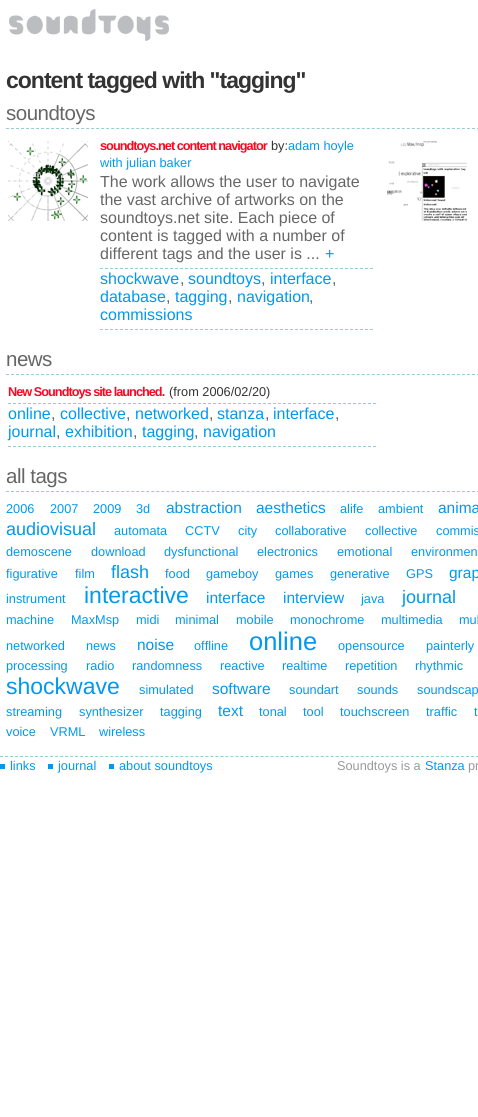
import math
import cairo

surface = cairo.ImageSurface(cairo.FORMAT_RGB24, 478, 1117)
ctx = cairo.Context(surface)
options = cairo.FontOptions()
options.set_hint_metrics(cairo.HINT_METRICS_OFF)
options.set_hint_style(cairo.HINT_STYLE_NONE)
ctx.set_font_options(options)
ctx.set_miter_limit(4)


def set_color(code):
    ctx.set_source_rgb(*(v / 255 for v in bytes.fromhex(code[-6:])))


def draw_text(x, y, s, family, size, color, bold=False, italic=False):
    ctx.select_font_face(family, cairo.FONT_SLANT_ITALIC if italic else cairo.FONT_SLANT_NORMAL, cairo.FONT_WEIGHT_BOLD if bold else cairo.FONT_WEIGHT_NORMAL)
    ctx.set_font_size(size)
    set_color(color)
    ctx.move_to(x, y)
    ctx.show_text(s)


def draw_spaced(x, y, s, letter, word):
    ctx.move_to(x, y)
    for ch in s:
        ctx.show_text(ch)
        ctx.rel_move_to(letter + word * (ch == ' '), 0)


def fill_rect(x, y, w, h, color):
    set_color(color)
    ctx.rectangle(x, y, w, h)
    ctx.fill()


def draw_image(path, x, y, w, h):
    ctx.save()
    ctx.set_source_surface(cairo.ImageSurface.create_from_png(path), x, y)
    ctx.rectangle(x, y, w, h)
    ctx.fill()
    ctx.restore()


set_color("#ffffff")
ctx.paint()
draw_image("assets/img1.png", 9, 9, 160, 32)
ctx.select_font_face("Liberation Sans", cairo.FONT_SLANT_NORMAL, cairo.FONT_WEIGHT_BOLD)
ctx.set_font_size(23)
set_color("#333333")
draw_spaced(6, 88, "content tagged with \"tagging\"", -1, 0)
ctx.new_path()
ctx.move_to(6, 128.5)
ctx.line_to(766, 128.5)
set_color("#99cccc")
ctx.set_line_width(1)
ctx.set_dash([3, 2.01])
ctx.stroke()
ctx.select_font_face("Liberation Sans")
ctx.set_font_size(20.5)
set_color("#666666")
draw_spaced(6, 120, "soundtoys", -0.5, 0)
draw_image("assets/img2.png", 8, 141, 80, 80)
ctx.select_font_face("Liberation Sans", cairo.FONT_SLANT_NORMAL, cairo.FONT_WEIGHT_BOLD)
ctx.set_font_size(12.75)
set_color("#fb0724")
draw_spaced(100, 150, "soundtoys.net content navigator", -1, 0)
draw_text(271, 150, "by:", "Liberation Sans", 12.75, "#333333")
draw_text(288, 150, "adam hoyle", "Liberation Sans", 12.75, "#0099ee")
draw_text(100, 167, "with julian baker", "Liberation Sans", 12.75, "#0099ee")
ctx.new_path()
ctx.move_to(100, 268.5)
ctx.line_to(373, 268.5)
set_color("#99cccc")
ctx.set_dash([3, 2])
ctx.stroke()
draw_text(100, 187, "The work allows the user to navigate", "Liberation Sans", 16, "#666666")
draw_text(100, 205, "the vast archive of artworks on the", "Liberation Sans", 16, "#666666")
draw_text(100, 223, "soundtoys.net site. Each piece of", "Liberation Sans", 16, "#666666")
draw_text(100, 241, "content is tagged with a number of", "Liberation Sans", 16, "#666666")
draw_text(100, 259, "different tags and the user is ...", "Liberation Sans", 16, "#666666")
draw_text(325, 259, "+", "Liberation Sans", 16, "#0099ee")
ctx.new_path()
ctx.move_to(100, 329.5)
ctx.line_to(373, 329.5)
set_color("#99cccc")
ctx.stroke()
draw_text(100, 284, "shockwave", "Liberation Sans", 16, "#0099ee")
draw_text(180, 284, ",", "Liberation Sans", 16, "#666666")
draw_text(188, 284, "soundtoys", "Liberation Sans", 16, "#0099ee")
draw_text(261, 284, ",", "Liberation Sans", 16, "#666666")
draw_text(270, 284, "interface", "Liberation Sans", 16, "#0099ee")
draw_text(332, 284, ",", "Liberation Sans", 16, "#666666")
draw_text(100, 302, "database", "Liberation Sans", 16, "#0099ee")
draw_text(166, 302, ",", "Liberation Sans", 16, "#666666")
draw_text(175, 302, "tagging", "Liberation Sans", 16, "#0099ee")
draw_text(228, 302, ",", "Liberation Sans", 16, "#666666")
draw_text(237, 302, "navigation", "Liberation Sans", 16, "#0099ee")
draw_text(309, 302, ",", "Liberation Sans", 16, "#666666")
draw_text(100, 320, "commissions", "Liberation Sans", 16, "#0099ee")
draw_image("assets/img3.png", 387, 141, 80, 80)
ctx.new_path()
ctx.move_to(6, 374.5)
ctx.line_to(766, 374.5)
set_color("#99cccc")
ctx.set_dash([3, 2.01])
ctx.stroke()
ctx.set_font_size(20.5)
set_color("#666666")
draw_spaced(6, 366, "news", -0.5, 0)
ctx.select_font_face("Liberation Sans", cairo.FONT_SLANT_NORMAL, cairo.FONT_WEIGHT_BOLD)
ctx.set_font_size(12.75)
set_color("#fb0724")
draw_spaced(8, 396, "New Soundtoys site launched.", -1, 0)
draw_text(169, 396, "(from 2006/02/20)", "Liberation Sans", 12.75, "#333333")
ctx.new_path()
ctx.move_to(8, 403.5)
ctx.line_to(376, 403.5)
set_color("#99cccc")
ctx.set_dash([3, 2])
ctx.stroke()
ctx.new_path()
ctx.move_to(8, 446.5)
ctx.line_to(376, 446.5)
ctx.stroke()
draw_text(8, 419, "online", "Liberation Sans", 16, "#0099ee")
draw_text(51, 419, ",", "Liberation Sans", 16, "#666666")
draw_text(60, 419, "collective", "Liberation Sans", 16, "#0099ee")
draw_text(126, 419, ",", "Liberation Sans", 16, "#666666")
draw_text(135, 419, "networked", "Liberation Sans", 16, "#0099ee")
draw_text(209, 419, ",", "Liberation Sans", 16, "#666666")
draw_text(217, 419, "stanza", "Liberation Sans", 16, "#0099ee")
draw_text(265, 419, ",", "Liberation Sans", 16, "#666666")
draw_text(273, 419, "interface", "Liberation Sans", 16, "#0099ee")
draw_text(335, 419, ",", "Liberation Sans", 16, "#666666")
draw_text(8, 437, "journal", "Liberation Sans", 16, "#0099ee")
draw_text(56, 437, ",", "Liberation Sans", 16, "#666666")
draw_text(65, 437, "exhibition", "Liberation Sans", 16, "#0099ee")
draw_text(133, 437, ",", "Liberation Sans", 16, "#666666")
draw_text(142, 437, "tagging", "Liberation Sans", 16, "#0099ee")
draw_text(194, 437, ",", "Liberation Sans", 16, "#666666")
draw_text(203, 437, "navigation", "Liberation Sans", 16, "#0099ee")
ctx.new_path()
ctx.move_to(6, 491.5)
ctx.line_to(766, 491.5)
set_color("#99cccc")
ctx.set_dash([3, 2.01])
ctx.stroke()
ctx.set_font_size(20.5)
set_color("#666666")
draw_spaced(6, 483, "all tags", -0.5, 0)
draw_text(6, 513, "2006", "Liberation Sans", 12.75, "#0099ee")
draw_text(50, 513, "2007", "Liberation Sans", 12.75, "#0099ee")
draw_text(93, 513, "2009", "Liberation Sans", 12.75, "#0099ee")
draw_text(136, 513, "3d", "Liberation Sans", 12.75, "#0099ee")
draw_text(166, 513, "abstraction", "Liberation Sans", 15.5, "#0099ee")
draw_text(256, 513, "aesthetics", "Liberation Sans", 15.5, "#0099ee")
draw_text(340, 513, "alife", "Liberation Sans", 12.75, "#0099ee")
draw_text(378, 513, "ambient", "Liberation Sans", 12.75, "#0099ee")
draw_text(438, 513, "anima", "Liberation Sans", 15.5, "#0099ee")
draw_text(6, 535, "audiovisual", "Liberation Sans", 18, "#0099ee")
draw_text(114, 535, "automata", "Liberation Sans", 12.75, "#0099ee")
draw_text(185, 535, "CCTV", "Liberation Sans", 12.75, "#0099ee")
draw_text(238, 535, "city", "Liberation Sans", 12.75, "#0099ee")
draw_text(275, 535, "collaborative", "Liberation Sans", 12.75, "#0099ee")
draw_text(365, 535, "collective", "Liberation Sans", 12.75, "#0099ee")
draw_text(436, 535, "commis", "Liberation Sans", 12.75, "#0099ee")
draw_text(6, 556, "demoscene", "Liberation Sans", 12.75, "#0099ee")
draw_text(91, 556, "download", "Liberation Sans", 12.75, "#0099ee")
draw_text(164, 556, "dysfunctional", "Liberation Sans", 12.75, "#0099ee")
draw_text(257, 556, "electronics", "Liberation Sans", 12.75, "#0099ee")
draw_text(337, 556, "emotional", "Liberation Sans", 12.75, "#0099ee")
draw_text(411, 556, "environmen", "Liberation Sans", 12.75, "#0099ee")
draw_text(6, 578, "figurative", "Liberation Sans", 12.75, "#0099ee")
draw_text(75, 578, "film", "Liberation Sans", 12.75, "#0099ee")
draw_text(111, 578, "flash", "Liberation Sans", 18, "#0099ee")
draw_text(165, 578, "food", "Liberation Sans", 12.75, "#0099ee")
draw_text(206, 578, "gameboy", "Liberation Sans", 12.75, "#0099ee")
draw_text(275, 578, "games", "Liberation Sans", 12.75, "#0099ee")
draw_text(330, 578, "generative", "Liberation Sans", 12.75, "#0099ee")
draw_text(406, 578, "GPS", "Liberation Sans", 12.75, "#0099ee")
draw_text(449, 578, "grap", "Liberation Sans", 15.5, "#0099ee")
draw_text(6, 603, "instrument", "Liberation Sans", 12.75, "#0099ee")
draw_text(84, 603, "interactive", "Liberation Sans", 23, "#0099ee")
draw_text(206, 603, "interface", "Liberation Sans", 15.5, "#0099ee")
draw_text(283, 603, "interview", "Liberation Sans", 15.5, "#0099ee")
draw_text(361, 603, "java", "Liberation Sans", 12.75, "#0099ee")
draw_text(402, 603, "journal", "Liberation Sans", 18, "#0099ee")
draw_text(6, 624, "machine", "Liberation Sans", 12.75, "#0099ee")
draw_text(71, 624, "MaxMsp", "Liberation Sans", 12.75, "#0099ee")
draw_text(136, 624, "midi", "Liberation Sans", 12.75, "#0099ee")
draw_text(175, 624, "minimal", "Liberation Sans", 12.75, "#0099ee")
draw_text(236, 624, "mobile", "Liberation Sans", 12.75, "#0099ee")
draw_text(290, 624, "monochrome", "Liberation Sans", 12.75, "#0099ee")
draw_text(381, 624, "multimedia", "Liberation Sans", 12.75, "#0099ee")
draw_text(459, 624, "mul", "Liberation Sans", 12.75, "#0099ee")
draw_text(6, 650, "networked", "Liberation Sans", 12.75, "#0099ee")
draw_text(86, 650, "news", "Liberation Sans", 12.75, "#0099ee")
draw_text(137, 650, "noise", "Liberation Sans", 15.5, "#0099ee")
draw_text(194, 650, "offline", "Liberation Sans", 12.75, "#0099ee")
draw_text(249, 650, "online", "Liberation Sans", 25.5, "#0099ee")
draw_text(338, 650, "opensource", "Liberation Sans", 12.75, "#0099ee")
draw_text(426, 650, "painterly", "Liberation Sans", 12.75, "#0099ee")
draw_text(6, 670, "processing", "Liberation Sans", 12.75, "#0099ee")
draw_text(86, 670, "radio", "Liberation Sans", 12.75, "#0099ee")
draw_text(132, 670, "randomness", "Liberation Sans", 12.75, "#0099ee")
draw_text(220, 670, "reactive", "Liberation Sans", 12.75, "#0099ee")
draw_text(282, 670, "realtime", "Liberation Sans", 12.75, "#0099ee")
draw_text(345, 670, "repetition", "Liberation Sans", 12.75, "#0099ee")
draw_text(415, 670, "rhythmic", "Liberation Sans", 12.75, "#0099ee")
draw_text(6, 694, "shockwave", "Liberation Sans", 23, "#0099ee")
draw_text(139, 694, "simulated", "Liberation Sans", 12.75, "#0099ee")
draw_text(212, 694, "software", "Liberation Sans", 15.5, "#0099ee")
draw_text(289, 694, "soundart", "Liberation Sans", 12.75, "#0099ee")
draw_text(357, 694, "sounds", "Liberation Sans", 12.75, "#0099ee")
draw_text(417, 694, "soundscap", "Liberation Sans", 12.75, "#0099ee")
draw_text(6, 716, "streaming", "Liberation Sans", 12.75, "#0099ee")
draw_text(79, 716, "synthesizer", "Liberation Sans", 12.75, "#0099ee")
draw_text(160, 716, "tagging", "Liberation Sans", 12.75, "#0099ee")
draw_text(218, 716, "text", "Liberation Sans", 15.5, "#0099ee")
draw_text(259, 716, "tonal", "Liberation Sans", 12.75, "#0099ee")
draw_text(303, 716, "tool", "Liberation Sans", 12.75, "#0099ee")
draw_text(340, 716, "touchscreen", "Liberation Sans", 12.75, "#0099ee")
draw_text(426, 716, "traffic", "Liberation Sans", 12.75, "#0099ee")
draw_text(474, 716, "t", "Liberation Sans", 12.75, "#0099ee")
draw_text(6, 736, "voice", "Liberation Sans", 12.75, "#0099ee")
draw_text(50, 736, "VRML", "Liberation Sans", 12.75, "#0099ee")
draw_text(99, 736, "wireless", "Liberation Sans", 12.75, "#0099ee")
ctx.new_path()
ctx.move_to(0, 756.5)
ctx.line_to(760, 756.5)
set_color("#99cccc")
ctx.stroke()
draw_text(10, 770, "links", "Liberation Sans", 12.75, "#0099ee")
fill_rect(0, 764, 5, 5, "#0099ee")
draw_text(58, 770, "journal", "Liberation Sans", 12.75, "#0099ee")
fill_rect(48, 764, 5, 5, "#0099ee")
draw_text(119, 770, "about soundtoys", "Liberation Sans", 12.75, "#0099ee")
fill_rect(109, 764, 5, 5, "#0099ee")
draw_text(337, 770, "Soundtoys is a", "Liberation Sans", 12.75, "#999999")
draw_text(425, 770, "Stanza", "Liberation Sans", 12.75, "#0099ee")
draw_text(468, 770, "pr", "Liberation Sans", 12.75, "#999999")
surface.write_to_png("output.png")
